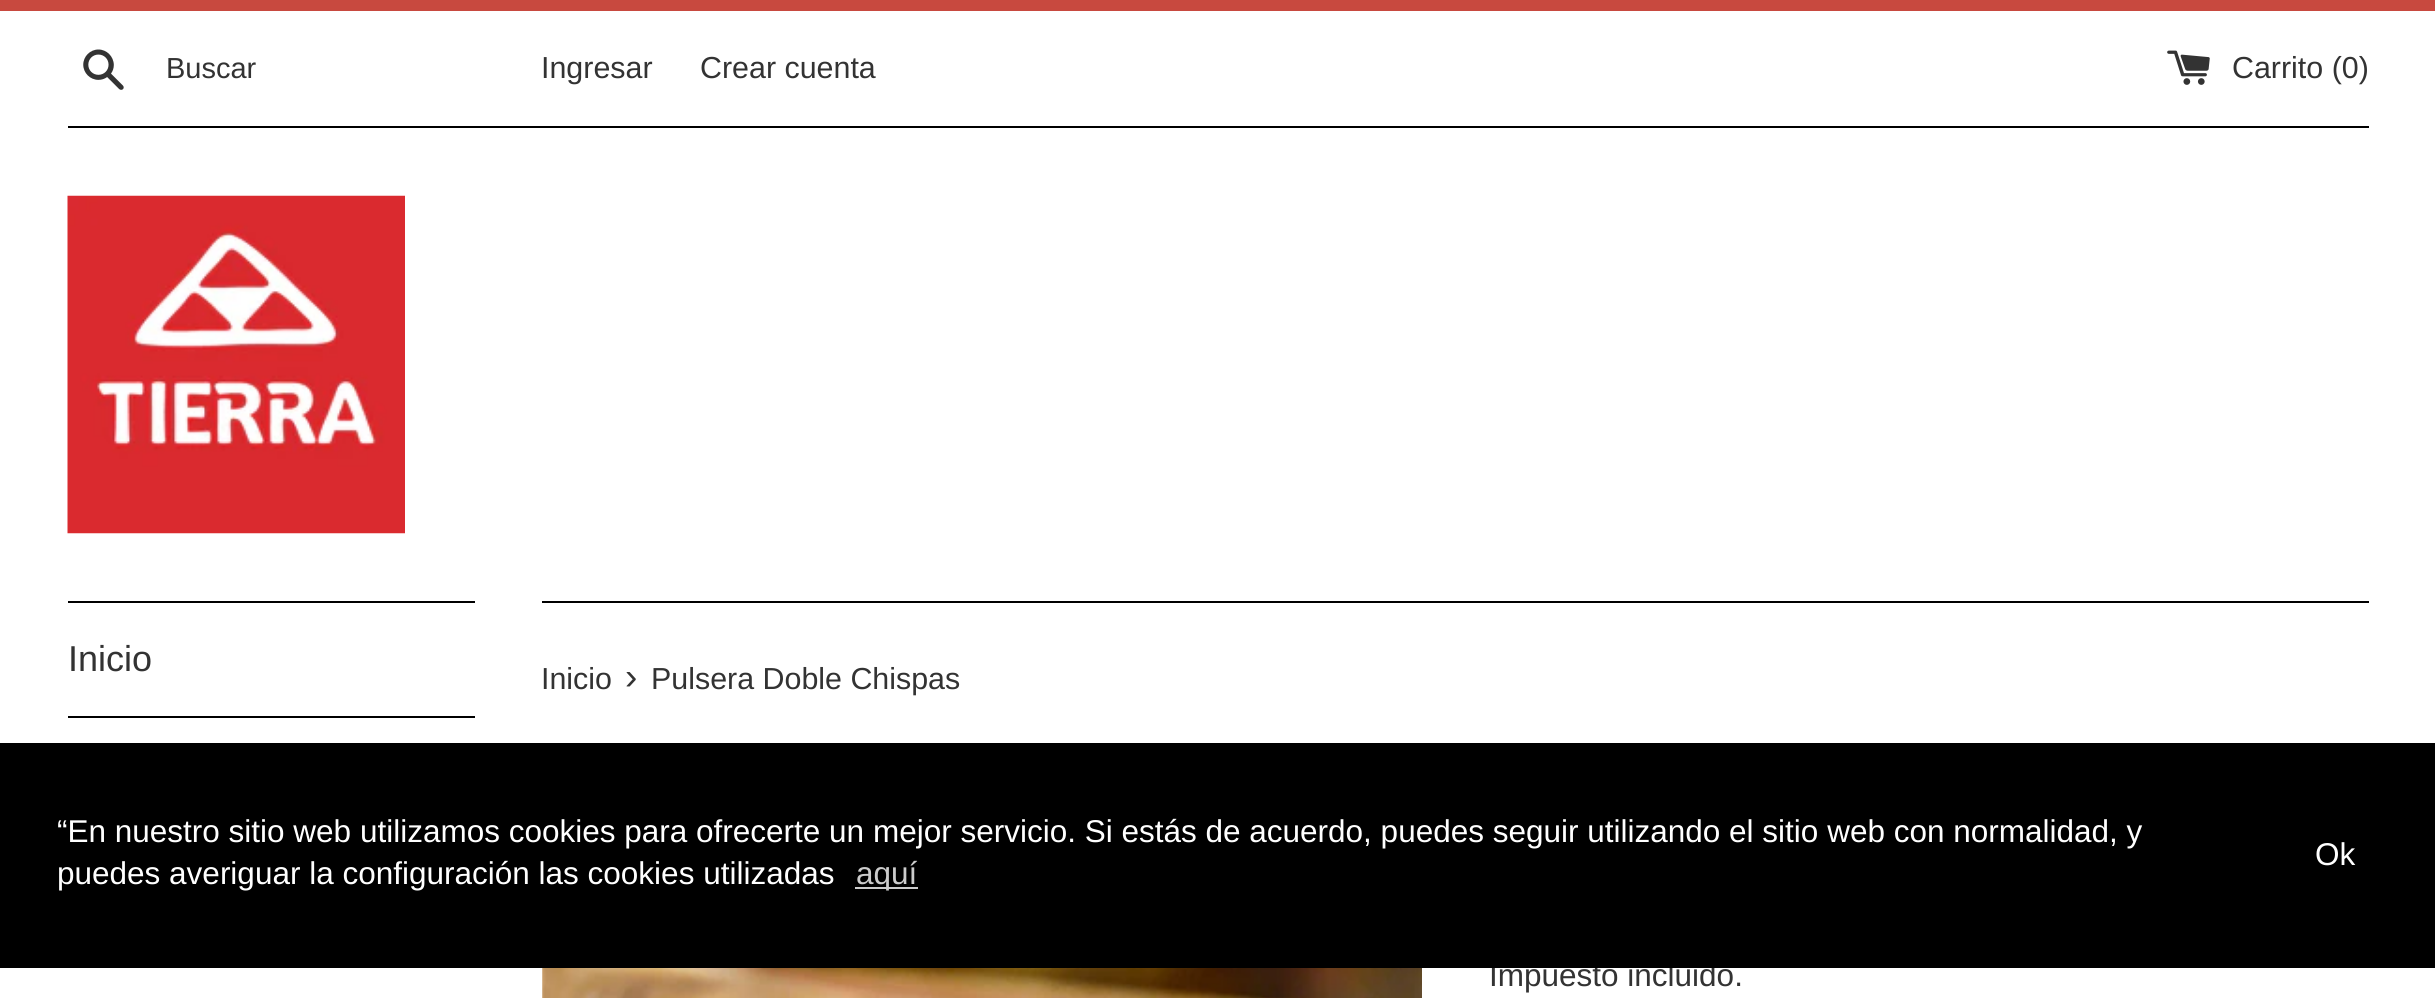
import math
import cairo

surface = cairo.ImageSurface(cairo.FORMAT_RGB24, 2435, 998)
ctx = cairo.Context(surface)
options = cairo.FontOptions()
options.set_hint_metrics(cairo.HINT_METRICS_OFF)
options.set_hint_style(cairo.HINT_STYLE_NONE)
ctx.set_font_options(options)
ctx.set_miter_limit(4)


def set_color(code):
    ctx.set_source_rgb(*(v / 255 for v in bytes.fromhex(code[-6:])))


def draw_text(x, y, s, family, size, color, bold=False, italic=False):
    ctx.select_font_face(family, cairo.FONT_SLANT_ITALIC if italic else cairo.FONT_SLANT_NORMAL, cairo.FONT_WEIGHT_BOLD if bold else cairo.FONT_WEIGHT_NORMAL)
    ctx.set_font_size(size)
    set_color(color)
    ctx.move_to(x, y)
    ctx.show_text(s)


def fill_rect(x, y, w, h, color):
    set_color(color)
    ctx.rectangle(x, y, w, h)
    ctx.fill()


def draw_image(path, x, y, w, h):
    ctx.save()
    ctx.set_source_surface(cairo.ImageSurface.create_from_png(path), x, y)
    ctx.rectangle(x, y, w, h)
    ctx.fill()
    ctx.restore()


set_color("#ffffff")
ctx.paint()
fill_rect(0, 0, 2435, 11, "#c8493f")
draw_image("assets/img1.png", 83, 49, 41, 41)
draw_text(166, 78, "Buscar", "Liberation Sans", 29, "#333333")
draw_text(541, 78, "Ingresar", "Liberation Sans", 30.4, "#333333")
draw_text(700, 78, "Crear cuenta", "Liberation Sans", 30.4, "#333333")
draw_image("assets/img2.png", 2167, 50, 43, 35)
draw_text(2232, 78, "Carrito (0)", "Liberation Sans", 30.4, "#333333")
fill_rect(68, 126, 2301, 2, "#000000")
draw_image("assets/img3.png", 67, 195, 338, 339)
fill_rect(68, 601, 407, 2, "#000000")
fill_rect(68, 716, 407, 2, "#000000")
draw_text(68, 671, "Inicio", "Liberation Sans", 36, "#333333")
fill_rect(542, 601, 1827, 2, "#000000")
draw_text(541, 689, "Inicio", "Liberation Sans", 30.4, "#333333")
draw_text(625, 689, "›", "Liberation Sans", 37, "#333333")
draw_text(651, 689, "Pulsera Doble Chispas", "Liberation Sans", 30.4, "#333333")
draw_image("assets/img4.png", 542, 968, 880, 30)
draw_text(1489, 986, "Impuesto incluido.", "Liberation Sans", 31.5, "#333333")
fill_rect(0, 743, 2435, 225, "#000000")
draw_text(57, 842, "“En nuestro sitio web utilizamos cookies para ofrecerte un mejor servicio. Si estás de acuerdo, puedes seguir utilizando el sitio web con normalidad, y", "Liberation Sans", 31.5, "#ffffff")
draw_text(57, 884, "puedes averiguar la configuración las cookies utilizadas", "Liberation Sans", 31.5, "#ffffff")
fill_rect(855, 887, 63, 2, "#cccccc")
draw_text(856, 884, "aquí", "Liberation Sans", 31.5, "#cccccc")
draw_text(2315, 865, "Ok", "Liberation Sans", 31.5, "#ffffff")
surface.write_to_png("output.png")
